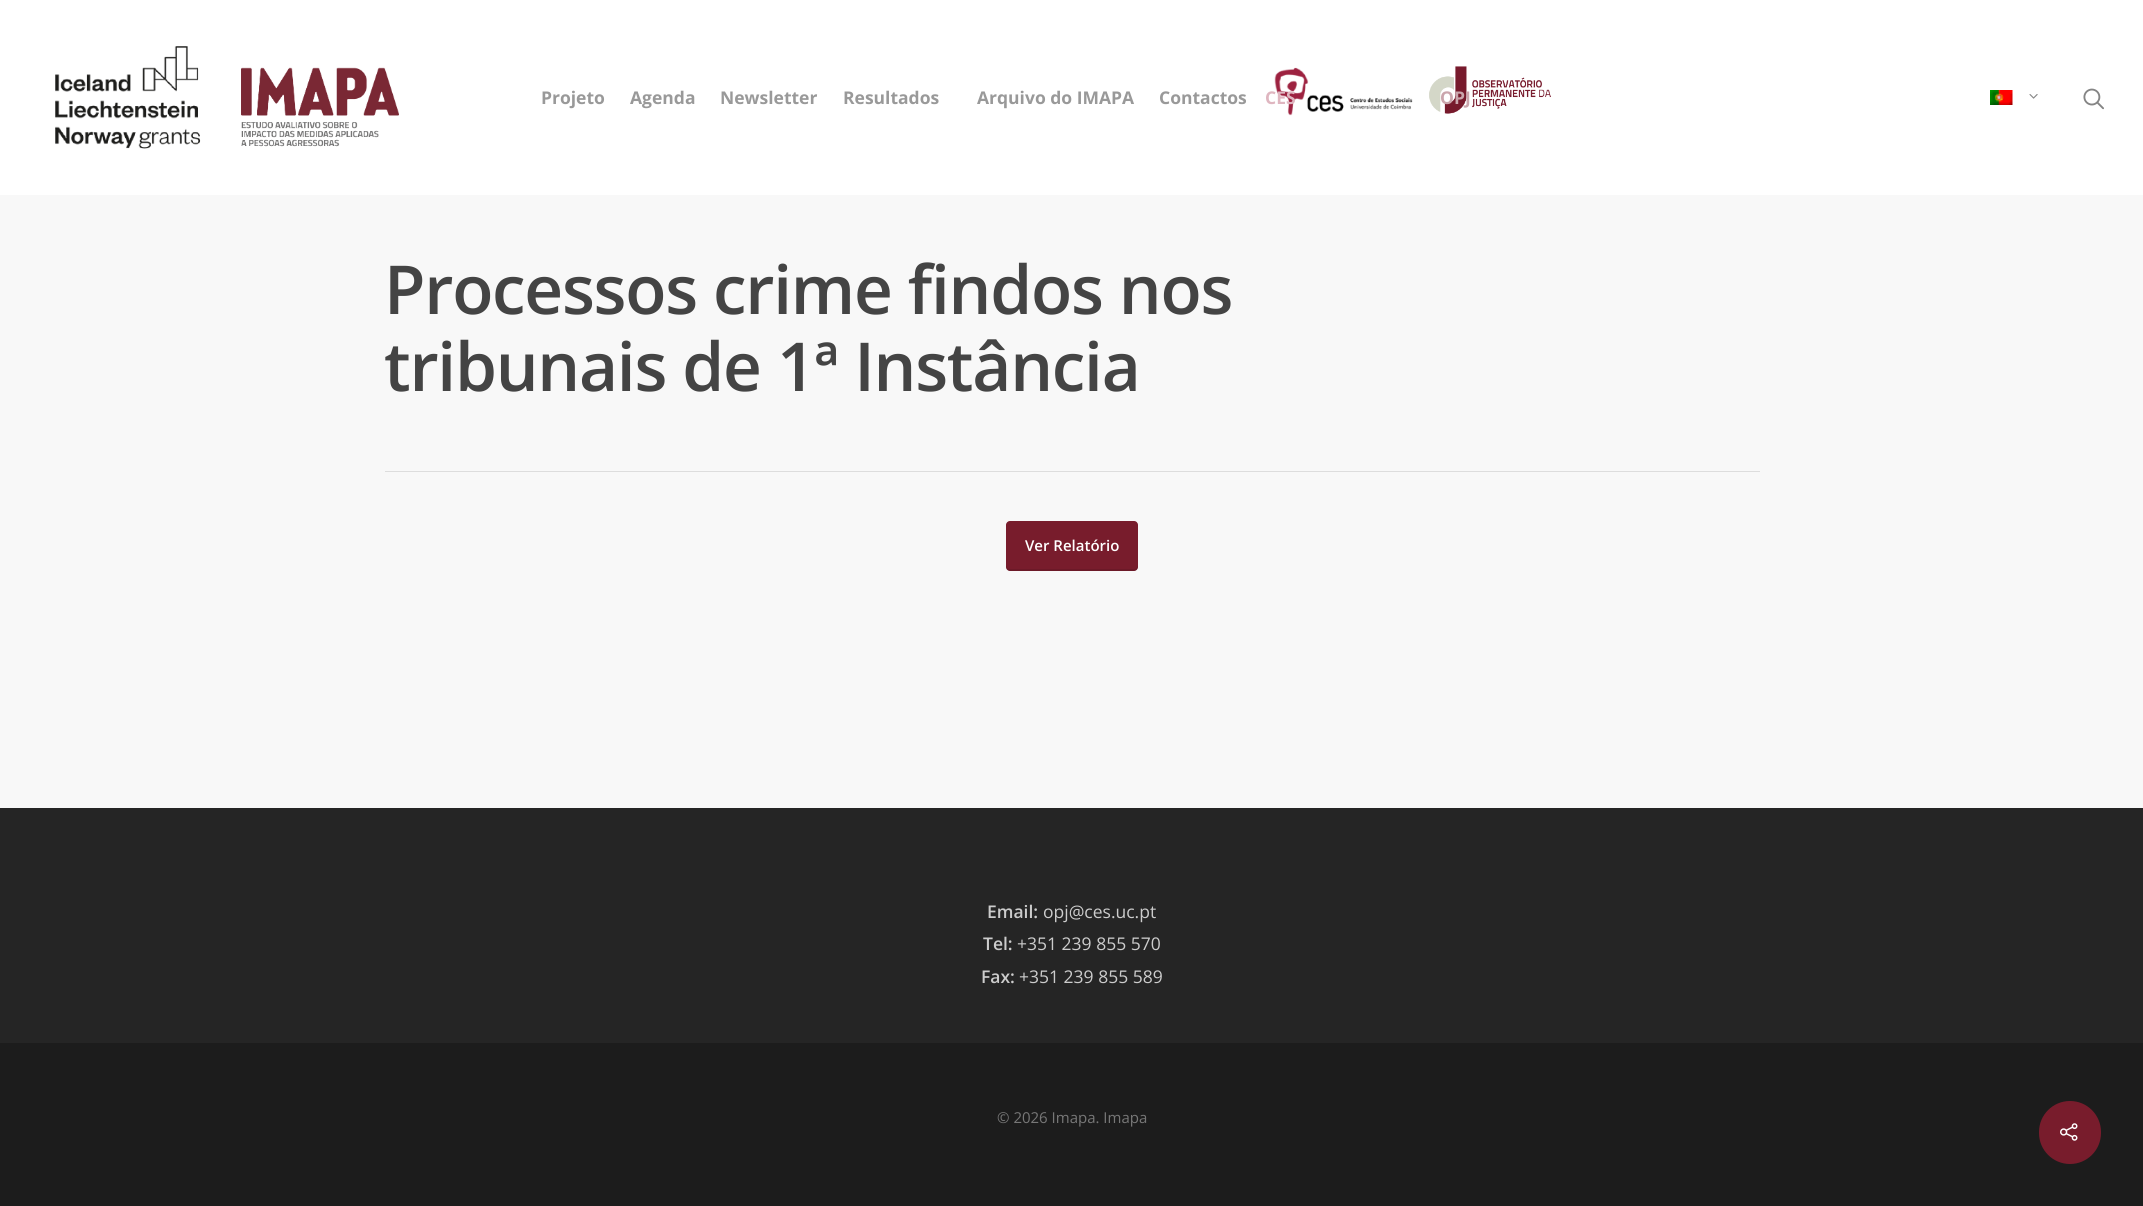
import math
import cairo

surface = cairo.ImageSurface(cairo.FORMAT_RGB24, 2143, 1206)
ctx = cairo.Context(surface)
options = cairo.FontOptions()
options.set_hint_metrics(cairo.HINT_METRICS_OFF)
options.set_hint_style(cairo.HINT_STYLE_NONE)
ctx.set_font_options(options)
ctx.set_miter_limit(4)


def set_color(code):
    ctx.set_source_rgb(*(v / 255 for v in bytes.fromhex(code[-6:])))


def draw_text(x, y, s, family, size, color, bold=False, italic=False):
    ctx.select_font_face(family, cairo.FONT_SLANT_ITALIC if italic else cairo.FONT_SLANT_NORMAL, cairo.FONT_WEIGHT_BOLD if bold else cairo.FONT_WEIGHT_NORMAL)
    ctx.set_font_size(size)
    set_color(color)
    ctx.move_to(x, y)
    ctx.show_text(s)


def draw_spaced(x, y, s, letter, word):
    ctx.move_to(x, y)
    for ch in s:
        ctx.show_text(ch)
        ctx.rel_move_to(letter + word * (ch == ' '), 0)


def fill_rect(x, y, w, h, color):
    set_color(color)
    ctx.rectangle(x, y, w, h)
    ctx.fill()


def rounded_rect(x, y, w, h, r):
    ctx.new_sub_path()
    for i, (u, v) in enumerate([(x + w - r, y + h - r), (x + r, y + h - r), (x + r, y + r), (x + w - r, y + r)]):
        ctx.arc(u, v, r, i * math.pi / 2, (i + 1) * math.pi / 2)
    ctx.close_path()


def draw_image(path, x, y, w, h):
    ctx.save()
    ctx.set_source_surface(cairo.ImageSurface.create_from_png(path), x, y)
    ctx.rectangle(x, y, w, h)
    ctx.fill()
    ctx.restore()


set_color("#ffffff")
ctx.paint()
draw_image("assets/img1.png", 55, 46, 344, 103)
draw_text(541, 104, "Projeto", "Open Sans", 17.5, "#999999", bold=True)
draw_text(630, 104, "Agenda", "Open Sans", 17.5, "#999999", bold=True)
draw_text(720, 104, "Newsletter", "Open Sans", 17.5, "#999999", bold=True)
draw_text(843, 104, "Resultados", "Open Sans", 17.5, "#999999", bold=True)
draw_text(977, 104, "Arquivo do IMAPA", "Open Sans", 17.5, "#999999", bold=True)
draw_text(1159, 104, "Contactos", "Open Sans", 17.5, "#999999", bold=True)
draw_image("assets/img2.png", 1274, 67, 139, 49)
draw_text(1265, 104, "CES", "Open Sans", 17.5, "#dfb6c0", bold=True)
draw_image("assets/img3.png", 1429, 66, 122, 48)
draw_text(1440, 104, "OPJ", "Open Sans", 17.5, "#caa5ac", bold=True)
draw_image("assets/img4.png", 1990, 90, 23, 15)
draw_image("assets/img5.png", 2029, 94, 9, 5)
draw_image("assets/img6.png", 2083, 88, 21, 22)
fill_rect(0, 195, 2143, 613, "#f8f8f8")
fill_rect(385, 471, 1375, 1, "#dddddd")
ctx.select_font_face("Open Sans SemiBold")
ctx.set_font_size(67.5)
set_color("#444444")
draw_spaced(384, 314, "Processos crime findos nos", -1.25, 0)
draw_spaced(384, 391, "tribunais de 1ª Instância", -1.25, 0)
set_color("#781c2c")
rounded_rect(1006, 521, 132, 50, 4)
ctx.fill()
ctx.set_source_rgba(0, 0, 0, 0.1)
ctx.new_path()
ctx.move_to(1006, 565)
ctx.line_to(1006, 567)
ctx.curve_to(1006, 569, 1008, 571, 1010, 571)
ctx.line_to(1134, 571)
ctx.curve_to(1136, 571, 1138, 569, 1138, 567)
ctx.line_to(1138, 565)
ctx.curve_to(1138, 567, 1136, 569, 1134, 569)
ctx.line_to(1010, 569)
ctx.curve_to(1008, 569, 1006, 567, 1006, 565)
ctx.close_path()
ctx.fill()
draw_text(1025, 551, "Ver Relatório", "Open Sans SemiBold", 15, "#ffffff")
fill_rect(0, 808, 2143, 235, "#252525")
draw_text(987, 918, "Email:", "Open Sans SemiBold", 17.5, "#cccccc")
draw_text(1043, 918, "opj@ces.uc.pt", "Open Sans", 17.5, "#cccccc")
draw_text(983, 950, "Tel:", "Open Sans SemiBold", 17.5, "#cccccc")
draw_text(1017, 950, "+351 239 855 570", "Open Sans", 17.5, "#cccccc")
draw_text(981, 983, "Fax:", "Open Sans SemiBold", 17.5, "#cccccc")
draw_text(1019, 983, "+351 239 855 589", "Open Sans", 17.5, "#cccccc")
fill_rect(0, 1043, 2143, 163, "#1c1c1c")
draw_text(997, 1123, "© 2026 Imapa. Imapa", "Open Sans", 15, "#777777")
set_color("#781c2c")
rounded_rect(2039, 1101, 62, 63, 31)
ctx.fill()
draw_image("assets/img7.png", 2060, 1123, 18, 18)
surface.write_to_png("output.png")
